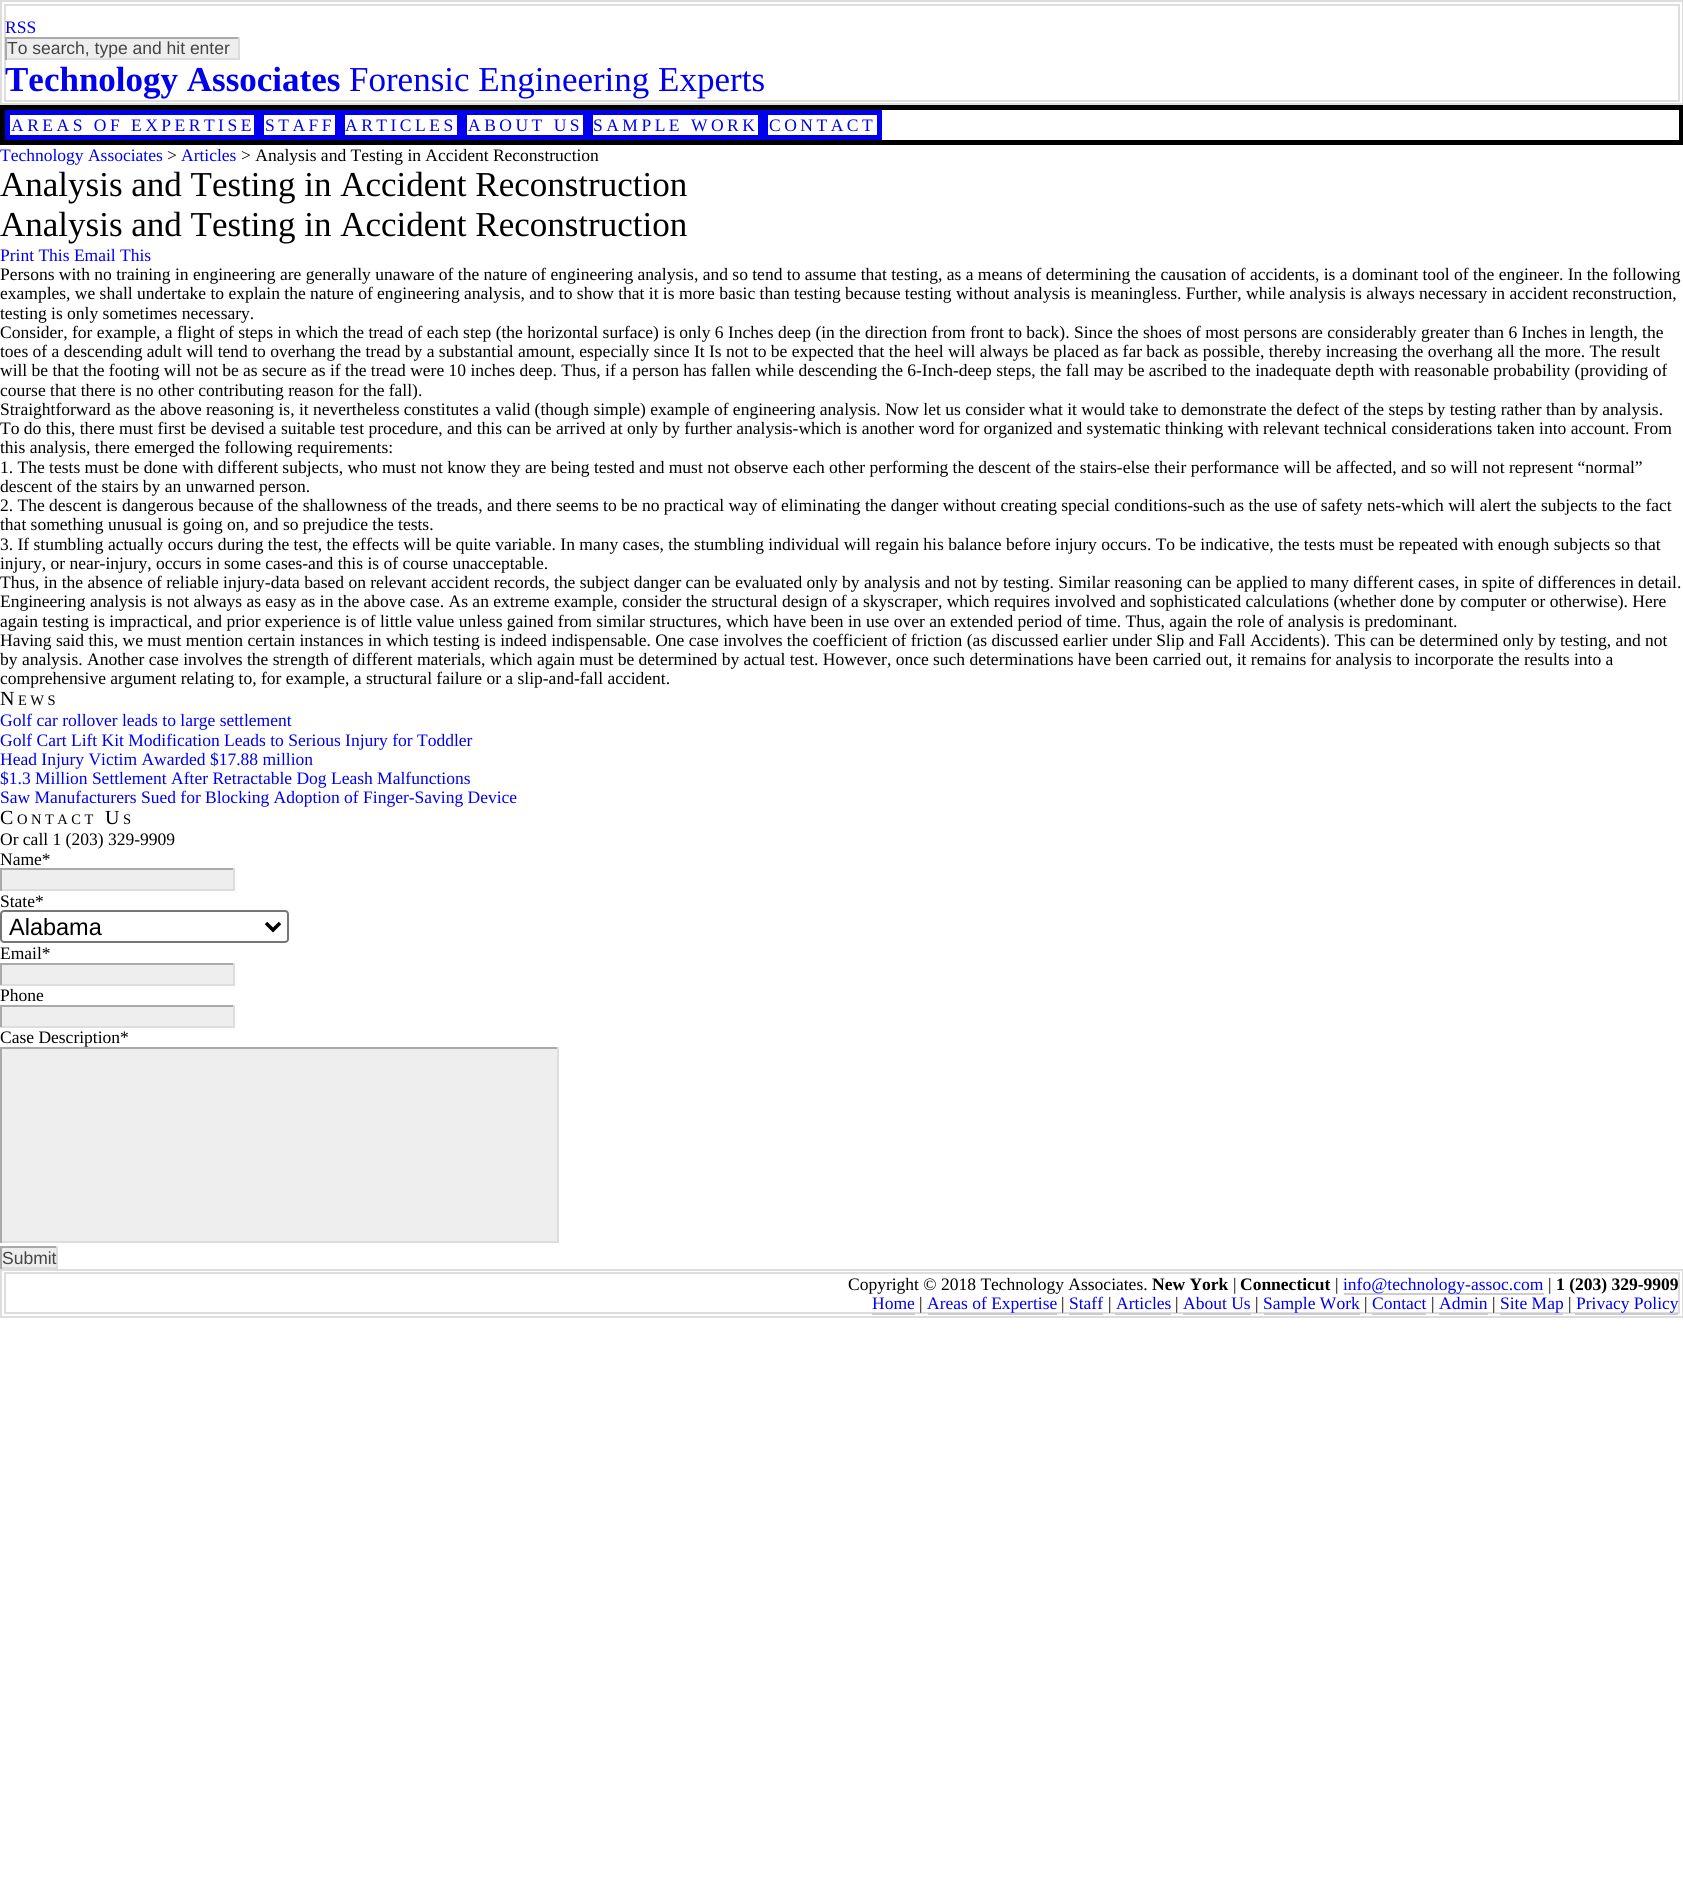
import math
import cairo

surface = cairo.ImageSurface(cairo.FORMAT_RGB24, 1683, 1894)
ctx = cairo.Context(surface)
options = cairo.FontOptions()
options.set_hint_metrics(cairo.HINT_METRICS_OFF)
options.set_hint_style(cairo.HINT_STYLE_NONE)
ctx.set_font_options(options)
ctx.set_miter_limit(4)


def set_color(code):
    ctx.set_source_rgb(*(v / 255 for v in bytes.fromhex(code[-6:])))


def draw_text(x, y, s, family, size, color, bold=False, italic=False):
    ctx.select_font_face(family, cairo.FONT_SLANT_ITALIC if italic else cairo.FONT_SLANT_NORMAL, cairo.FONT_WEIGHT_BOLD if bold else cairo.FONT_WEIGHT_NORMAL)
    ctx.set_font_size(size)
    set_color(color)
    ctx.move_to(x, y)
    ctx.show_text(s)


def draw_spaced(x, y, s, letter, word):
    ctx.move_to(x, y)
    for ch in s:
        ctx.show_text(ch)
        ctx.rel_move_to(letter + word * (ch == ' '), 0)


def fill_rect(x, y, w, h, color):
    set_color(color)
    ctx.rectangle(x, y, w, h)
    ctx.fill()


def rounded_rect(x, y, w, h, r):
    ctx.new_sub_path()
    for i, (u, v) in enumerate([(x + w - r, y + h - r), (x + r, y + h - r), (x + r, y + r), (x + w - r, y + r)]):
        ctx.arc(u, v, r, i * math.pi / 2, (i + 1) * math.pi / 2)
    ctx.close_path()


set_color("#ffffff")
ctx.paint()
ctx.rectangle(1, 1, 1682, 103)
set_color("#dddddd")
ctx.stroke()
ctx.rectangle(5, 5, 1674, 96)
ctx.stroke()
draw_text(5, 33, "RSS", "Liberation Serif", 17.5, "#0000ee")
fill_rect(7, 39, 231, 19, "#eeeeee")
fill_rect(5, 37, 235, 2, "#aaaaaa")
fill_rect(238, 37, 2, 23, "#dddddd")
fill_rect(5, 58, 235, 2, "#dddddd")
fill_rect(5, 37, 2, 23, "#aaaaaa")
draw_text(7, 54, "To search, type and hit enter", "Liberation Sans", 17.5, "#444444")
draw_text(5, 91, "Technology Associates", "Liberation Serif", 35, "#0000ee", bold=True)
draw_text(349, 91, "Forensic Engineering Experts", "Liberation Serif", 35, "#0000ee")
ctx.rectangle(2.5, 107.5, 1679, 35)
set_color("#000000")
ctx.set_line_width(5)
ctx.stroke()
ctx.rectangle(7.5, 112.5, 249, 25)
set_color("#0000ee")
ctx.stroke()
ctx.set_font_size(17.5)
draw_spaced(11, 131, "AREAS OF EXPERTISE", 3.5, 0)
ctx.rectangle(261.5, 112.5, 76, 25)
ctx.stroke()
draw_spaced(265, 131, "STAFF", 3.5, 0)
ctx.rectangle(342.5, 112.5, 117, 25)
ctx.stroke()
draw_spaced(345, 131, "ARTICLES", 3.5, 0)
ctx.rectangle(464.5, 112.5, 121, 25)
ctx.stroke()
draw_spaced(468, 131, "ABOUT US", 3.5, 0)
ctx.rectangle(590.5, 112.5, 170, 25)
ctx.stroke()
draw_spaced(593, 131, "SAMPLE WORK", 3.5, 0)
ctx.rectangle(765.5, 112.5, 114, 25)
ctx.stroke()
draw_spaced(769, 131, "CONTACT", 3.5, 0)
draw_text(0, 161, "Technology Associates", "Liberation Serif", 17.5, "#0000ee")
draw_text(167, 161, ">", "Liberation Serif", 17.5, "#000000")
draw_text(181, 161, "Articles", "Liberation Serif", 17.5, "#0000ee")
draw_text(241, 161, "> Analysis and Testing in Accident Reconstruction", "Liberation Serif", 17.5, "#000000")
draw_text(0, 196, "Analysis and Testing in Accident Reconstruction", "Liberation Serif", 35, "#000000")
draw_text(0, 236, "Analysis and Testing in Accident Reconstruction", "Liberation Serif", 35, "#000000")
draw_text(0, 261, "Print This Email This", "Liberation Serif", 17.5, "#0000ee")
draw_text(0, 280, "Persons with no training in engineering are generally unaware of the nature of engineering analysis, and so tend to assume that testing, as a means of determining the causation of accidents, is a dominant tool of the engineer. In the following", "Liberation Serif", 17.5, "#000000")
draw_text(0, 299, "examples, we shall undertake to explain the nature of engineering analysis, and to show that it is more basic than testing because testing without analysis is meaningless. Further, while analysis is always necessary in accident reconstruction,", "Liberation Serif", 17.5, "#000000")
draw_text(0, 319, "testing is only sometimes necessary.", "Liberation Serif", 17.5, "#000000")
draw_text(0, 338, "Consider, for example, a flight of steps in which the tread of each step (the horizontal surface) is only 6 Inches deep (in the direction from front to back). Since the shoes of most persons are considerably greater than 6 Inches in length, the", "Liberation Serif", 17.5, "#000000")
draw_text(0, 357, "toes of a descending adult will tend to overhang the tread by a substantial amount, especially since It Is not to be expected that the heel will always be placed as far back as possible, thereby increasing the overhang all the more. The result", "Liberation Serif", 17.5, "#000000")
draw_text(0, 376, "will be that the footing will not be as secure as if the tread were 10 inches deep. Thus, if a person has fallen while descending the 6-Inch-deep steps, the fall may be ascribed to the inadequate depth with reasonable probability (providing of", "Liberation Serif", 17.5, "#000000")
draw_text(0, 396, "course that there is no other contributing reason for the fall).", "Liberation Serif", 17.5, "#000000")
draw_text(0, 415, "Straightforward as the above reasoning is, it nevertheless constitutes a valid (though simple) example of engineering analysis. Now let us consider what it would take to demonstrate the defect of the steps by testing rather than by analysis.", "Liberation Serif", 17.5, "#000000")
draw_text(0, 434, "To do this, there must first be devised a suitable test procedure, and this can be arrived at only by further analysis-which is another word for organized and systematic thinking with relevant technical considerations taken into account. From", "Liberation Serif", 17.5, "#000000")
draw_text(0, 453, "this analysis, there emerged the following requirements:", "Liberation Serif", 17.5, "#000000")
draw_text(0, 473, "1. The tests must be done with different subjects, who must not know they are being tested and must not observe each other performing the descent of the stairs-else their performance will be affected, and so will not represent “normal”", "Liberation Serif", 17.5, "#000000")
draw_text(0, 492, "descent of the stairs by an unwarned person.", "Liberation Serif", 17.5, "#000000")
draw_text(0, 511, "2. The descent is dangerous because of the shallowness of the treads, and there seems to be no practical way of eliminating the danger without creating special conditions-such as the use of safety nets-which will alert the subjects to the fact", "Liberation Serif", 17.5, "#000000")
draw_text(0, 530, "that something unusual is going on, and so prejudice the tests.", "Liberation Serif", 17.5, "#000000")
draw_text(0, 550, "3. If stumbling actually occurs during the test, the effects will be quite variable. In many cases, the stumbling individual will regain his balance before injury occurs. To be indicative, the tests must be repeated with enough subjects so that", "Liberation Serif", 17.5, "#000000")
draw_text(0, 569, "injury, or near-injury, occurs in some cases-and this is of course unacceptable.", "Liberation Serif", 17.5, "#000000")
draw_text(0, 588, "Thus, in the absence of reliable injury-data based on relevant accident records, the subject danger can be evaluated only by analysis and not by testing. Similar reasoning can be applied to many different cases, in spite of differences in detail.", "Liberation Serif", 17.5, "#000000")
draw_text(0, 607, "Engineering analysis is not always as easy as in the above case. As an extreme example, consider the structural design of a skyscraper, which requires involved and sophisticated calculations (whether done by computer or otherwise). Here", "Liberation Serif", 17.5, "#000000")
draw_text(0, 627, "again testing is impractical, and prior experience is of little value unless gained from similar structures, which have been in use over an extended period of time. Thus, again the role of analysis is predominant.", "Liberation Serif", 17.5, "#000000")
draw_text(0, 646, "Having said this, we must mention certain instances in which testing is indeed indispensable. One case involves the coefficient of friction (as discussed earlier under Slip and Fall Accidents). This can be determined only by testing, and not", "Liberation Serif", 17.5, "#000000")
draw_text(0, 665, "by analysis. Another case involves the strength of different materials, which again must be determined by actual test. However, once such determinations have been carried out, it remains for analysis to incorporate the results into a", "Liberation Serif", 17.5, "#000000")
draw_text(0, 684, "comprehensive argument relating to, for example, a structural failure or a slip-and-fall accident.", "Liberation Serif", 17.5, "#000000")
ctx.set_font_size(20)
draw_spaced(0, 705, "N", 3.5, 0)
ctx.set_font_size(14.5)
draw_spaced(18, 705, "EWS", 3.5, 0)
draw_text(0, 726, "Golf car rollover leads to large settlement", "Liberation Serif", 17.5, "#0000ee")
draw_text(0, 746, "Golf Cart Lift Kit Modification Leads to Serious Injury for Toddler", "Liberation Serif", 17.5, "#0000ee")
draw_text(0, 765, "Head Injury Victim Awarded $17.88 million", "Liberation Serif", 17.5, "#0000ee")
draw_text(0, 784, "$1.3 Million Settlement After Retractable Dog Leash Malfunctions", "Liberation Serif", 17.5, "#0000ee")
draw_text(0, 803, "Saw Manufacturers Sued for Blocking Adoption of Finger-Saving Device", "Liberation Serif", 17.5, "#0000ee")
ctx.set_font_size(20)
set_color("#000000")
draw_spaced(0, 824, "C", 3.5, 0)
ctx.set_font_size(14.5)
draw_spaced(17, 824, "ONTACT", 3.5, 0)
ctx.set_font_size(20)
draw_spaced(105, 824, "U", 3.5, 0)
ctx.set_font_size(14.5)
draw_spaced(123, 824, "S", 3.5, 0)
draw_text(0, 845, "Or call 1 (203) 329-9909", "Liberation Serif", 17.5, "#000000")
draw_text(0, 865, "Name*", "Liberation Serif", 17.5, "#000000")
fill_rect(2, 870, 231, 19, "#eeeeee")
fill_rect(0, 868, 235, 2, "#aaaaaa")
fill_rect(233, 868, 2, 23, "#dddddd")
fill_rect(0, 889, 235, 2, "#dddddd")
fill_rect(0, 868, 2, 23, "#aaaaaa")
draw_text(0, 907, "State*", "Liberation Serif", 17.5, "#000000")
rounded_rect(1, 911, 287, 31, 3)
set_color("#767676")
ctx.set_line_width(2)
ctx.stroke()
ctx.new_path()
ctx.move_to(266, 923)
ctx.line_to(273, 930)
ctx.line_to(280, 923)
set_color("#000000")
ctx.set_line_width(3.5)
ctx.stroke()
draw_text(9, 935, "Alabama", "Liberation Sans", 23.5, "#000000")
draw_text(0, 959, "Email*", "Liberation Serif", 17.5, "#000000")
fill_rect(2, 965, 231, 19, "#eeeeee")
fill_rect(0, 963, 235, 2, "#aaaaaa")
fill_rect(233, 963, 2, 22, "#dddddd")
fill_rect(0, 984, 235, 2, "#dddddd")
fill_rect(0, 963, 2, 22, "#aaaaaa")
draw_text(0, 1001, "Phone", "Liberation Serif", 17.5, "#000000")
fill_rect(2, 1007, 231, 19, "#eeeeee")
fill_rect(0, 1005, 235, 2, "#aaaaaa")
fill_rect(233, 1005, 2, 22, "#dddddd")
fill_rect(0, 1026, 235, 2, "#dddddd")
fill_rect(0, 1005, 2, 22, "#aaaaaa")
draw_text(0, 1043, "Case Description*", "Liberation Serif", 17.5, "#000000")
fill_rect(2, 1049, 555, 192, "#eeeeee")
fill_rect(0, 1047, 558, 2, "#aaaaaa")
fill_rect(557, 1047, 2, 196, "#dddddd")
fill_rect(0, 1241, 558, 2, "#dddddd")
fill_rect(0, 1047, 2, 196, "#aaaaaa")
fill_rect(2, 1248, 54, 19, "#eeeeee")
fill_rect(0, 1246, 58, 2, "#aaaaaa")
fill_rect(56, 1246, 2, 23, "#dddddd")
fill_rect(0, 1267, 58, 2, "#dddddd")
fill_rect(0, 1246, 2, 23, "#aaaaaa")
draw_text(2, 1264, "Submit", "Liberation Sans", 17.5, "#444444")
ctx.rectangle(1, 1270, 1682, 47)
set_color("#dddddd")
ctx.set_line_width(2)
ctx.stroke()
ctx.rectangle(5, 1273, 1674, 40)
ctx.stroke()
draw_text(848, 1290, "Copyright © 2018 Technology Associates.", "Liberation Serif", 17.5, "#000000")
draw_text(1152, 1290, "New York", "Liberation Serif", 17.5, "#000000", bold=True)
draw_text(1233, 1290, "|", "Liberation Serif", 17.5, "#000000")
draw_text(1240, 1290, "Connecticut", "Liberation Serif", 17.5, "#000000", bold=True)
draw_text(1335, 1290, "|", "Liberation Serif", 17.5, "#000000")
fill_rect(1344, 1293, 200, 2, "#cccccc")
draw_text(1343, 1290, "info@technology-assoc.com", "Liberation Serif", 17.5, "#0000ee")
draw_text(1548, 1290, "|", "Liberation Serif", 17.5, "#000000")
draw_text(1556, 1290, "1 (203) 329-9909", "Liberation Serif", 17.5, "#000000", bold=True)
draw_text(872, 1309, "Home", "Liberation Serif", 17.5, "#0000ee")
fill_rect(872, 1313, 43, 2, "#cccccc")
draw_text(919, 1309, "|", "Liberation Serif", 17.5, "#000000")
draw_text(927, 1309, "Areas of Expertise", "Liberation Serif", 17.5, "#0000ee")
fill_rect(928, 1313, 129, 2, "#cccccc")
draw_text(1061, 1309, "|", "Liberation Serif", 17.5, "#000000")
draw_text(1069, 1309, "Staff", "Liberation Serif", 17.5, "#0000ee")
fill_rect(1069, 1313, 34, 2, "#cccccc")
draw_text(1108, 1309, "|", "Liberation Serif", 17.5, "#000000")
draw_text(1116, 1309, "Articles", "Liberation Serif", 17.5, "#0000ee")
fill_rect(1115, 1313, 56, 2, "#cccccc")
draw_text(1175, 1309, "|", "Liberation Serif", 17.5, "#000000")
draw_text(1183, 1309, "About Us", "Liberation Serif", 17.5, "#0000ee")
fill_rect(1183, 1313, 68, 2, "#cccccc")
draw_text(1255, 1309, "|", "Liberation Serif", 17.5, "#000000")
draw_text(1263, 1309, "Sample Work", "Liberation Serif", 17.5, "#0000ee")
fill_rect(1264, 1313, 96, 2, "#cccccc")
draw_text(1364, 1309, "|", "Liberation Serif", 17.5, "#000000")
draw_text(1372, 1309, "Contact", "Liberation Serif", 17.5, "#0000ee")
fill_rect(1372, 1313, 54, 2, "#cccccc")
draw_text(1431, 1309, "|", "Liberation Serif", 17.5, "#000000")
draw_text(1439, 1309, "Admin", "Liberation Serif", 17.5, "#0000ee")
fill_rect(1439, 1313, 49, 2, "#cccccc")
draw_text(1492, 1309, "|", "Liberation Serif", 17.5, "#000000")
draw_text(1500, 1309, "Site Map", "Liberation Serif", 17.5, "#0000ee")
fill_rect(1500, 1313, 63, 2, "#cccccc")
draw_text(1568, 1309, "|", "Liberation Serif", 17.5, "#000000")
draw_text(1576, 1309, "Privacy Policy", "Liberation Serif", 17.5, "#0000ee")
fill_rect(1575, 1313, 103, 2, "#cccccc")
surface.write_to_png("output.png")
